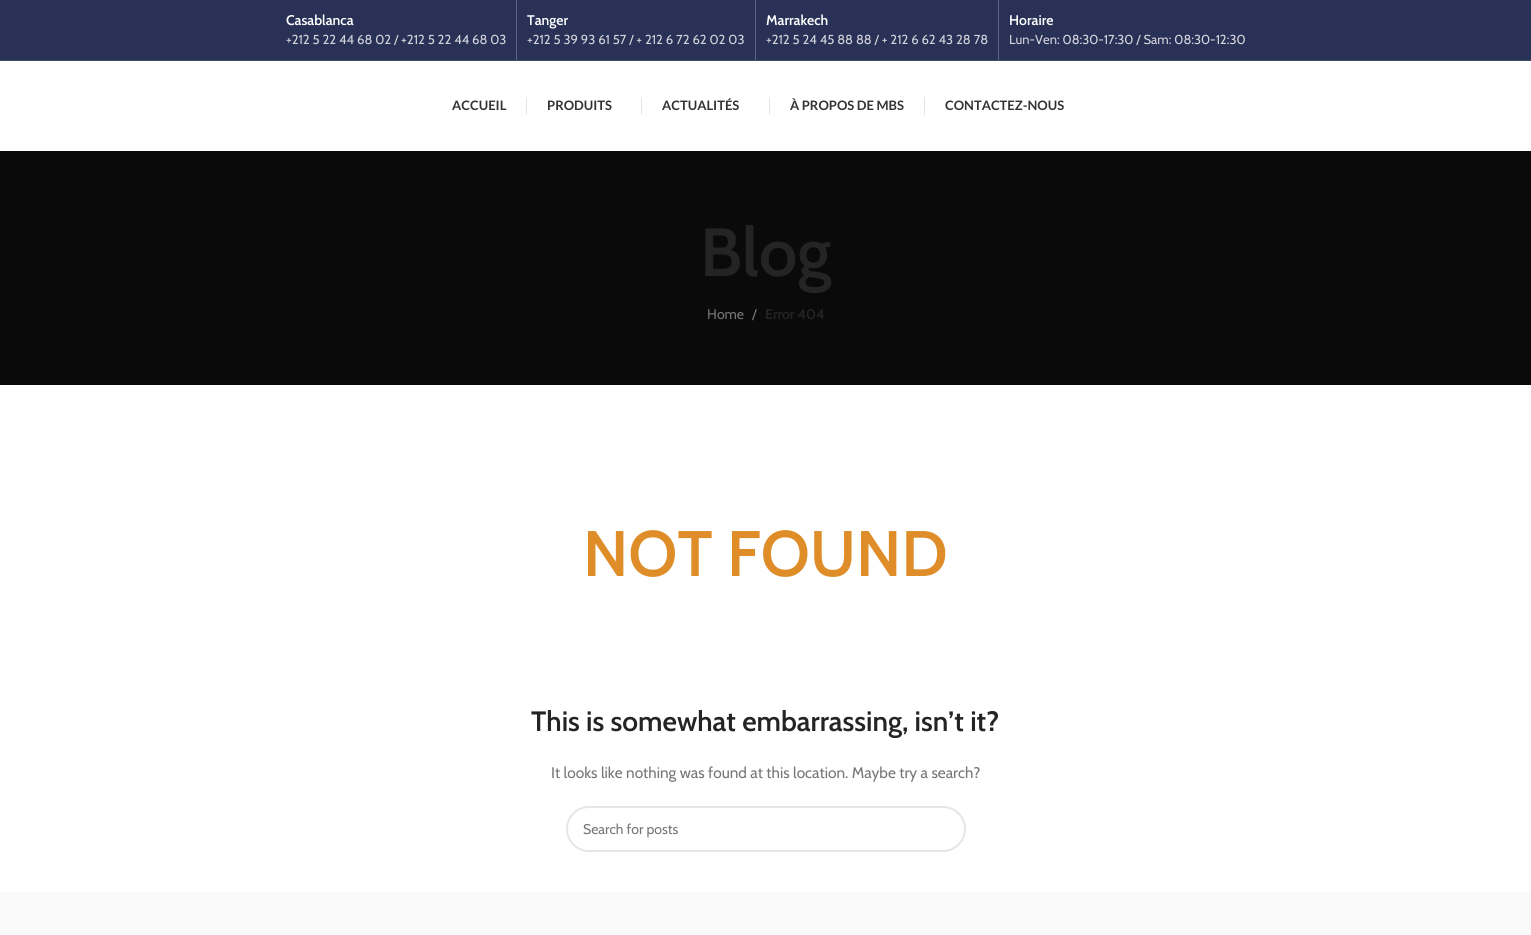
import math
import cairo

surface = cairo.ImageSurface(cairo.FORMAT_RGB24, 1531, 935)
ctx = cairo.Context(surface)
options = cairo.FontOptions()
options.set_hint_metrics(cairo.HINT_METRICS_OFF)
options.set_hint_style(cairo.HINT_STYLE_NONE)
ctx.set_font_options(options)
ctx.set_miter_limit(4)


def set_color(code):
    ctx.set_source_rgb(*(v / 255 for v in bytes.fromhex(code[-6:])))


def draw_text(x, y, s, family, size, color, bold=False, italic=False):
    ctx.select_font_face(family, cairo.FONT_SLANT_ITALIC if italic else cairo.FONT_SLANT_NORMAL, cairo.FONT_WEIGHT_BOLD if bold else cairo.FONT_WEIGHT_NORMAL)
    ctx.set_font_size(size)
    set_color(color)
    ctx.move_to(x, y)
    ctx.show_text(s)


def fill_rect(x, y, w, h, color):
    set_color(color)
    ctx.rectangle(x, y, w, h)
    ctx.fill()


def rounded_rect(x, y, w, h, r):
    ctx.new_sub_path()
    for i, (u, v) in enumerate([(x + w - r, y + h - r), (x + r, y + h - r), (x + r, y + r), (x + w - r, y + r)]):
        ctx.arc(u, v, r, i * math.pi / 2, (i + 1) * math.pi / 2)
    ctx.close_path()


set_color("#ffffff")
ctx.paint()
fill_rect(0, 0, 1531, 60, "#293156")
fill_rect(0, 60, 1531, 1, "#3a4d69")
draw_text(286, 25, "Casablanca", "Cabin SemiBold", 14, "#ffffff")
draw_text(286, 44, "+212 5 22 44 68 02 / +212 5 22 44 68 03", "Cabin", 13, "#d4d6dd")
fill_rect(516, 0, 1, 60, "#5f6580")
draw_text(527, 25, "Tanger", "Cabin SemiBold", 14, "#ffffff")
draw_text(527, 44, "+212 5 39 93 61 57 / + 212 6 72 62 02 03", "Cabin", 13, "#d4d6dd")
fill_rect(755, 0, 1, 60, "#5f6580")
draw_text(766, 25, "Marrakech", "Cabin SemiBold", 14, "#ffffff")
draw_text(766, 44, "+212 5 24 45 88 88 / + 212 6 62 43 28 78", "Cabin", 13, "#d4d6dd")
fill_rect(998, 0, 1, 60, "#5f6580")
draw_text(1009, 25, "Horaire", "Cabin SemiBold", 14, "#ffffff")
draw_text(1009, 44, "Lun-Ven: 08:30-17:30 / Sam: 08:30-12:30", "Cabin", 13, "#d4d6dd")
draw_text(452, 110, "ACCUEIL", "Lato", 13, "#333333", bold=True)
fill_rect(526, 97, 1, 18, "#e4e4e4")
draw_text(547, 110, "PRODUITS", "Lato", 13, "#333333", bold=True)
fill_rect(641, 97, 1, 18, "#e4e4e4")
draw_text(662, 110, "ACTUALITÉS", "Lato", 13, "#333333", bold=True)
fill_rect(769, 97, 1, 18, "#e4e4e4")
draw_text(790, 110, "À PROPOS DE MBS", "Lato", 13, "#333333", bold=True)
fill_rect(924, 97, 1, 18, "#e4e4e4")
draw_text(945, 110, "CONTACTEZ-NOUS", "Lato", 13, "#333333", bold=True)
fill_rect(0, 151, 1531, 234, "#0a0a0a")
draw_text(700, 276, "Blog", "Cabin SemiBold", 68, "#242424")
draw_text(707, 319, "Home", "Cabin", 14, "#767676")
draw_text(752, 319, "/", "Cabin", 14, "#767676")
draw_text(765, 319, "Error 404", "Cabin SemiBold", 14, "#242424")
draw_text(583, 576, "NOT FOUND", "Cabin SemiBold", 64.25, "#df8d29")
draw_text(531, 731, "This is somewhat embarrassing, isn’t it?", "Cabin SemiBold", 28, "#242424")
draw_text(551, 778, "It looks like nothing was found at this location. Maybe try a search?", "Cabin", 15.4, "#767676")
rounded_rect(567, 807, 398, 44, 22)
set_color("#e6e6e6")
ctx.stroke()
draw_text(583, 834, "Search for posts", "Cabin", 14, "#767676")
fill_rect(0, 892, 1531, 43, "#f9f9f9")
surface.write_to_png("output.png")
